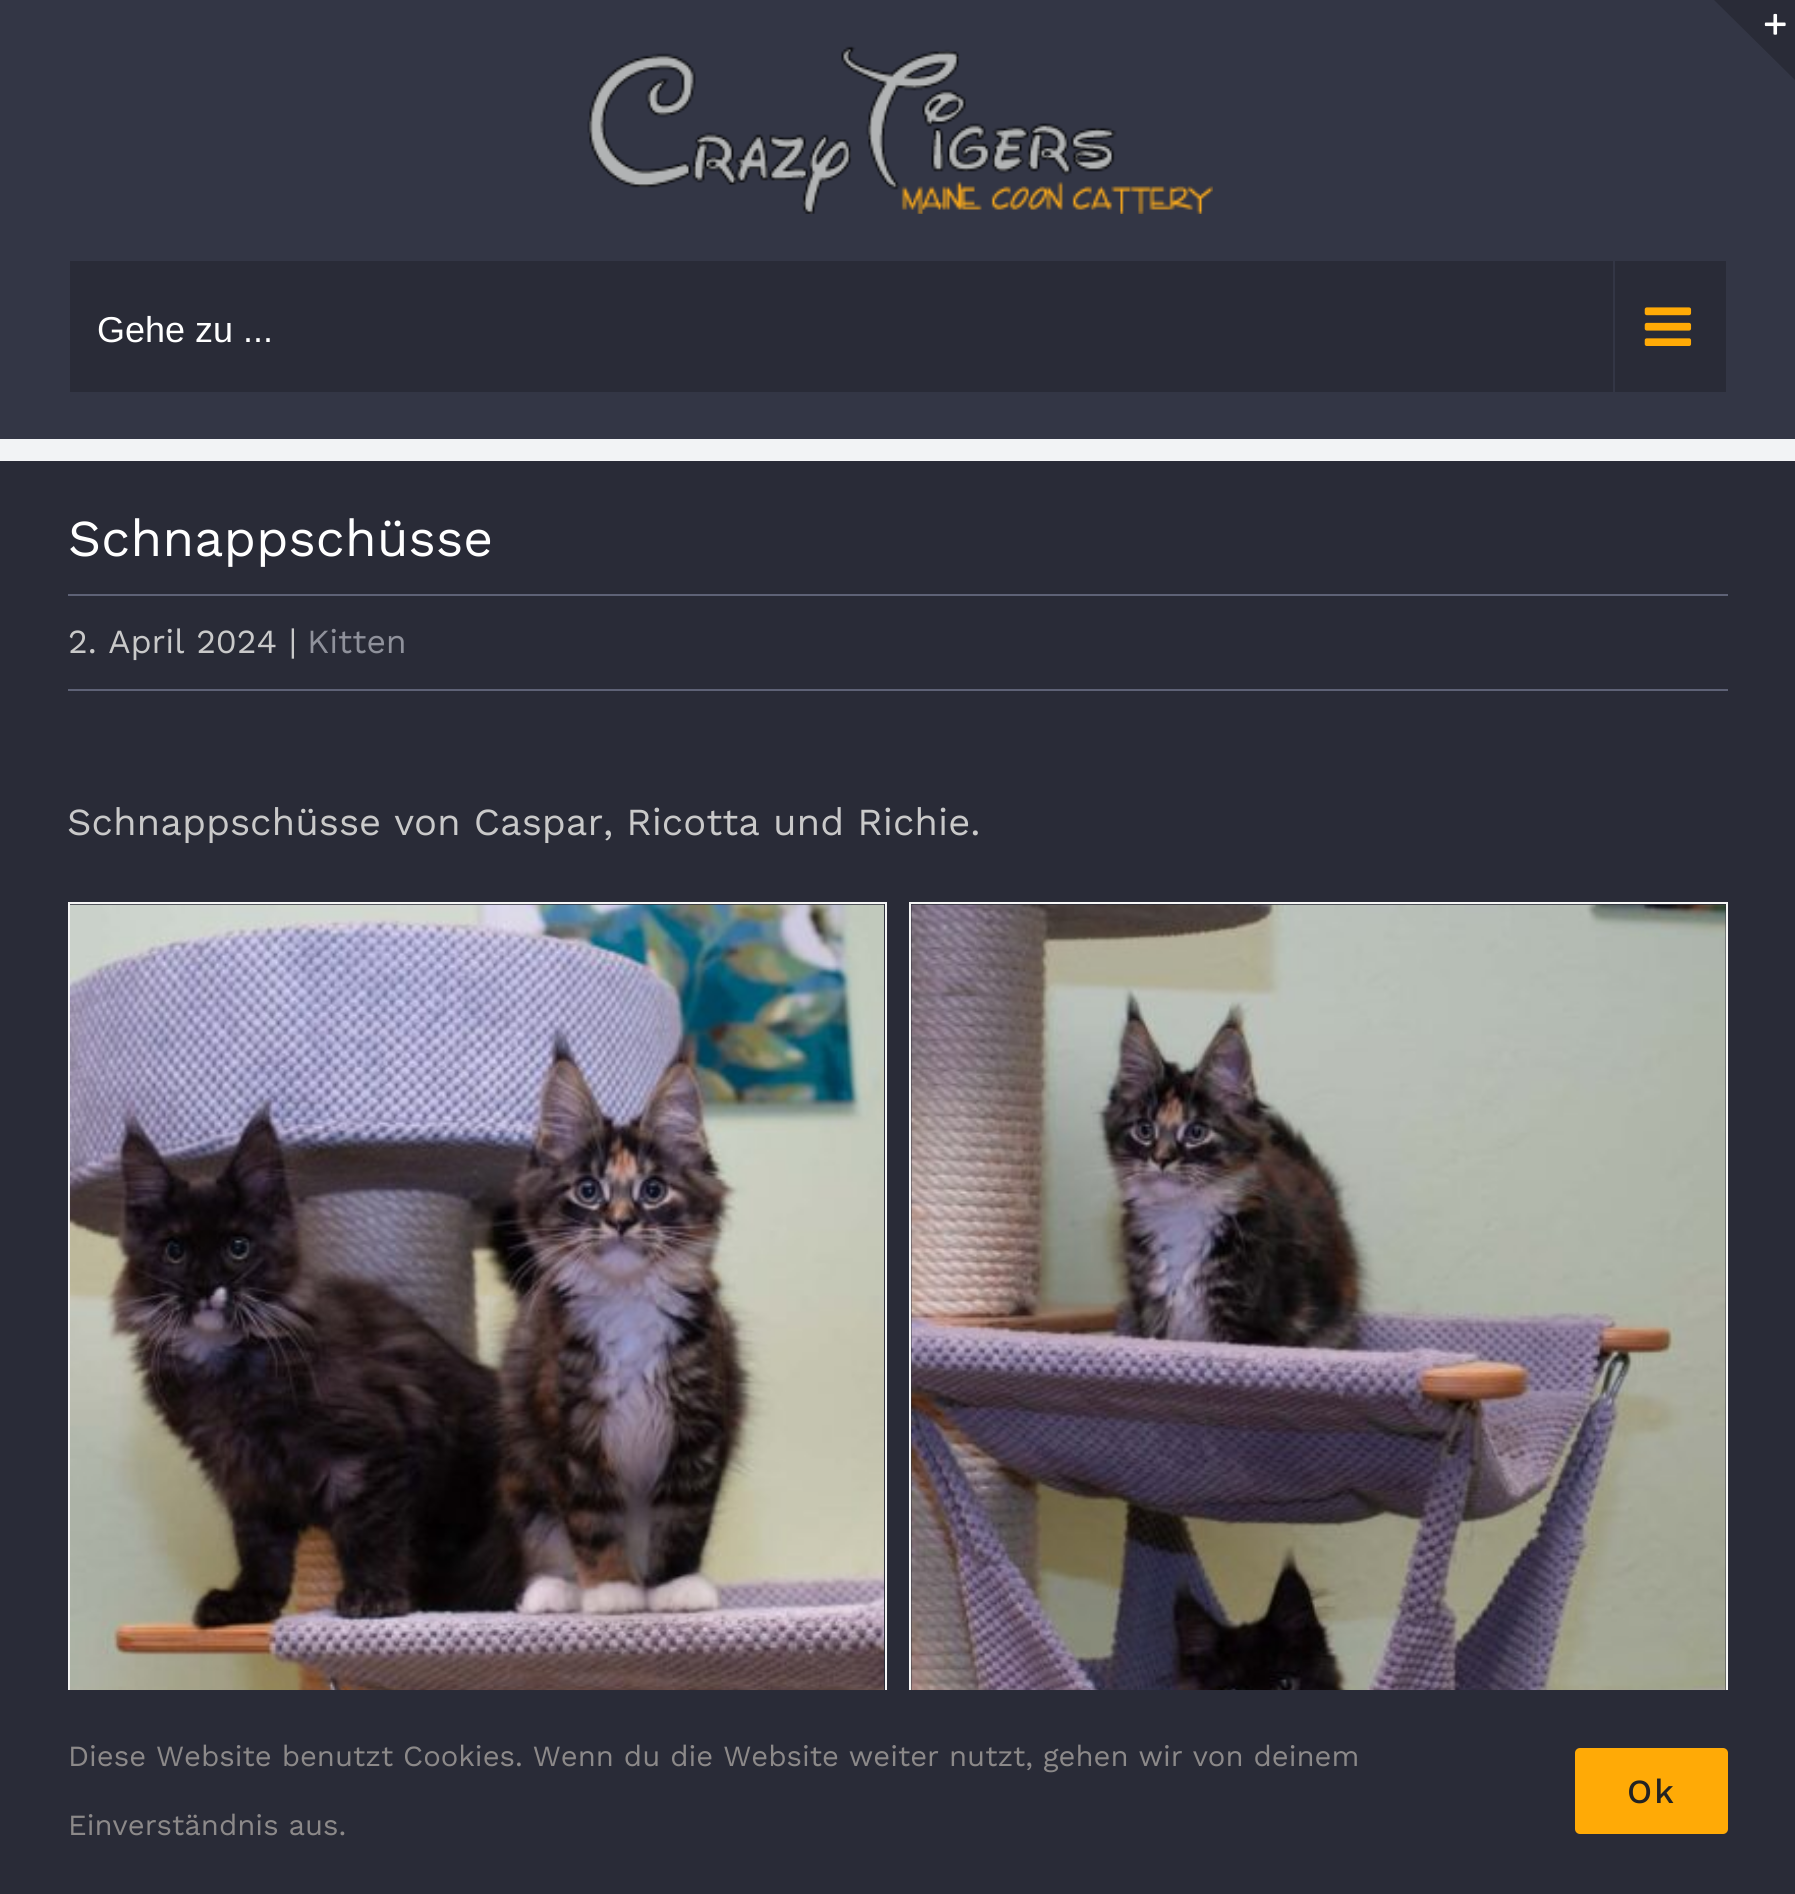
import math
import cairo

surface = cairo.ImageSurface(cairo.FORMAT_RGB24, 1795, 1894)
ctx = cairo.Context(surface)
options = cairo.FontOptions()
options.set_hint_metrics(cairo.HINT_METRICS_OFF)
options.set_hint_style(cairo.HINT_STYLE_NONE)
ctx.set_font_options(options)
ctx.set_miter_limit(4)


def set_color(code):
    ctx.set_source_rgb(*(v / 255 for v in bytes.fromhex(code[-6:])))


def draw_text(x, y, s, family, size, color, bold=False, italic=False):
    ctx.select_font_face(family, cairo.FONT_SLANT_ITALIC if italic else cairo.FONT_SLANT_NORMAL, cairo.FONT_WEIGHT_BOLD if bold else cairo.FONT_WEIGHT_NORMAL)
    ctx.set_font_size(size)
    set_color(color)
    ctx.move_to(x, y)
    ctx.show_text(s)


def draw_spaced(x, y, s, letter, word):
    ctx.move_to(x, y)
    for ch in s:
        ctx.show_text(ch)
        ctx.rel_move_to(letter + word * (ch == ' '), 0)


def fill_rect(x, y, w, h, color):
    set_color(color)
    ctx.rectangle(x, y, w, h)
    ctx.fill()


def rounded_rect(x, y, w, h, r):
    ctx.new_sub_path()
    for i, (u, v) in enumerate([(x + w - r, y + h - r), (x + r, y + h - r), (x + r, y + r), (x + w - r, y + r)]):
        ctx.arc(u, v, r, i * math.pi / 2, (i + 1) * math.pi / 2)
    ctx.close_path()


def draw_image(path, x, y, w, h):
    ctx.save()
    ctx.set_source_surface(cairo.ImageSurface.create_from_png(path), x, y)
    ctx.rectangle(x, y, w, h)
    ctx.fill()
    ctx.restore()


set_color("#f2f3f5")
ctx.paint()
fill_rect(0, 0, 1795, 439, "#333645")
set_color("#292b37")
ctx.new_path()
ctx.move_to(1714, 0)
ctx.line_to(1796, 0)
ctx.line_to(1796, 81)
ctx.close_path()
ctx.fill()
draw_image("assets/img1.png", 1764, 13, 22, 22)
draw_image("assets/img2.png", 587, 46, 626, 168)
fill_rect(70, 261, 1656, 131, "#292b37")
draw_text(97, 342, "Gehe zu ...", "Liberation Sans", 36, "#ffffff")
fill_rect(1613, 261, 2, 131, "#333645")
draw_image("assets/img3.png", 1644, 307, 48, 39)
fill_rect(0, 461, 1795, 1229, "#292b37")
draw_text(68, 556, "Schnappschüsse", "Work Sans", 51.75, "#ffffff")
fill_rect(68, 594, 1660, 2, "#5e6276")
fill_rect(68, 689, 1660, 2, "#5e6276")
draw_text(68, 653, "2. April 2024 |", "Work Sans", 33.75, "#c9c9c9")
draw_text(307, 653, "Kitten", "Work Sans", 33.75, "#8f919b")
draw_text(67, 835, "Schnappschüsse von Caspar, Ricotta und Richie.", "Work Sans", 38.25, "#c9c9c9")
ctx.rectangle(69, 903, 817, 817)
set_color("#f6f6f6")
ctx.stroke()
draw_image("assets/img4.png", 69, 904, 816, 786)
ctx.rectangle(910, 903, 817, 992)
ctx.stroke()
draw_image("assets/img5.png", 911, 904, 815, 786)
fill_rect(0, 1690, 1795, 204, "#292b37")
draw_text(68, 1766, "Diese Website benutzt Cookies. Wenn du die Website weiter nutzt, gehen wir von deinem", "Work Sans", 29.25, "#8c8989")
draw_text(68, 1835, "Einverständnis aus.", "Work Sans", 29.25, "#8c8989")
set_color("#ffaa06")
rounded_rect(1575, 1748, 153, 86, 5)
ctx.fill()
ctx.select_font_face("Work Sans Medium")
ctx.set_font_size(33.75)
set_color("#232323")
draw_spaced(1627, 1803, "Ok", 2, 0)
surface.write_to_png("output.png")
